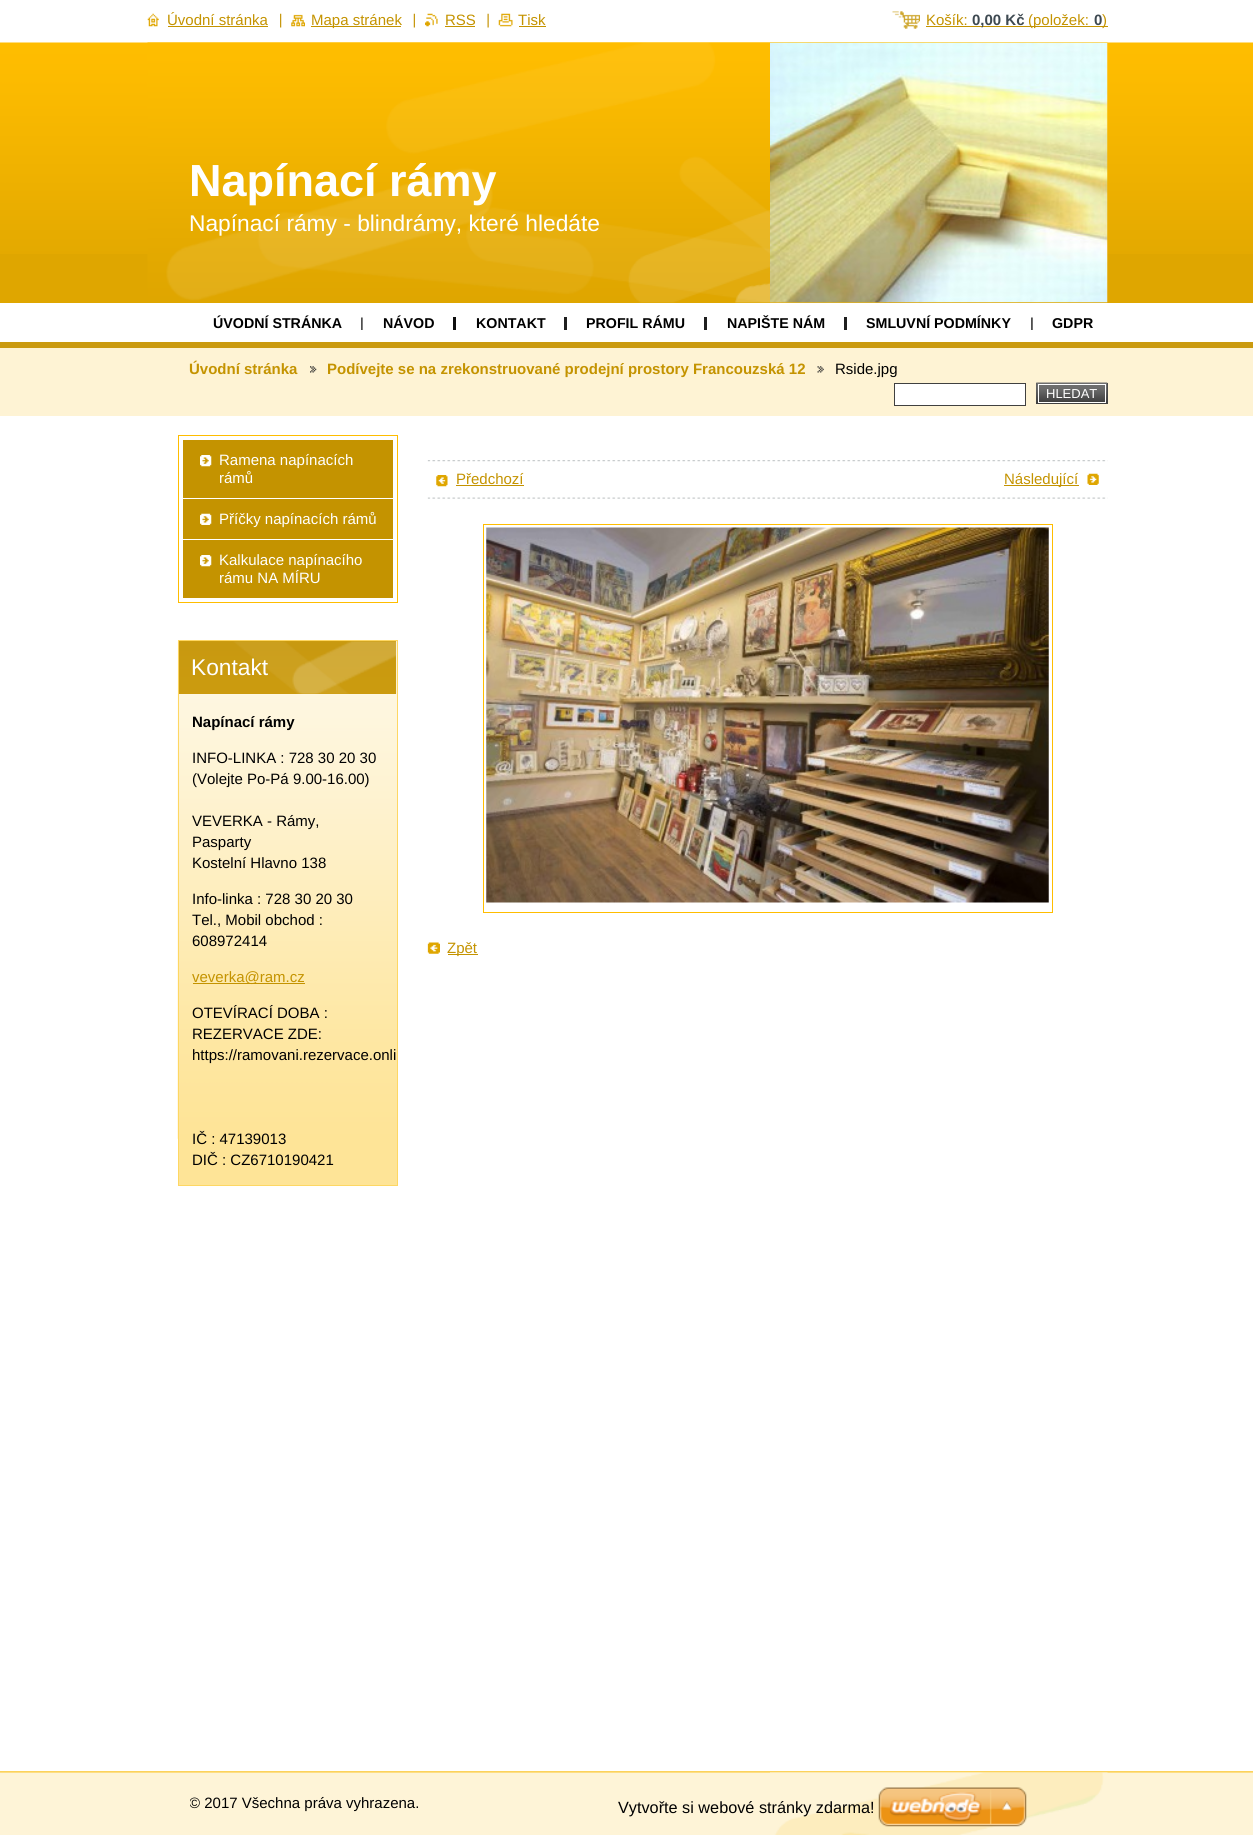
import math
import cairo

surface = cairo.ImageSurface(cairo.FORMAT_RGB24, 1253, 1835)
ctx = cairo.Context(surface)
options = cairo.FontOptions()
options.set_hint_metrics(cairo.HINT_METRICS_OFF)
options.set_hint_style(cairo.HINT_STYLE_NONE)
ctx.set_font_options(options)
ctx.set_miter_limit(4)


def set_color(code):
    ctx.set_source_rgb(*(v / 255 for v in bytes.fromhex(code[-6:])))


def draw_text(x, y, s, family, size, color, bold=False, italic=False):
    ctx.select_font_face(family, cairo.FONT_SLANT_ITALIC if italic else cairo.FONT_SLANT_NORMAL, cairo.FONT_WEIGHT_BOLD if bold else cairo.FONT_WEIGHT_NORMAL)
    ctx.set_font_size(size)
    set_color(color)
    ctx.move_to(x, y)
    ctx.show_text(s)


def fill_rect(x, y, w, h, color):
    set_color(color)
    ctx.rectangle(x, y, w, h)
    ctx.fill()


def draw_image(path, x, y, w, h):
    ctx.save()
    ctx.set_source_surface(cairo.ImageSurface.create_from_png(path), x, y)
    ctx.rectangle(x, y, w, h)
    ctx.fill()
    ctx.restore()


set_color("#ffffff")
ctx.paint()
draw_image("assets/img1.png", 147, 13, 12, 14)
draw_text(167, 25, "Úvodní stránka", "Liberation Sans", 15, "#c49300")
fill_rect(168, 26, 100, 1, "#c49300")
draw_image("assets/img2.png", 280, 13, 2, 15)
draw_image("assets/img3.png", 291, 14, 14, 13)
fill_rect(311, 26, 90, 1, "#c49300")
draw_text(311, 25, "Mapa stránek", "Liberation Sans", 15, "#c49300")
draw_image("assets/img4.png", 413, 13, 2, 15)
draw_image("assets/img5.png", 425, 13, 13, 14)
draw_text(445, 25, "RSS", "Liberation Sans", 15, "#c49300")
fill_rect(445, 26, 30, 1, "#c49300")
draw_image("assets/img6.png", 487, 13, 2, 15)
draw_image("assets/img7.png", 498, 13, 15, 14)
draw_text(518, 25, "Tisk", "Liberation Sans", 15, "#c49300")
fill_rect(519, 26, 27, 1, "#c49300")
draw_image("assets/img8.png", 892, 11, 28, 18)
draw_text(926, 25, "Košík:", "Liberation Sans", 15, "#c49300")
fill_rect(926, 26, 182, 1, "#c49300")
draw_text(972, 25, "0,00 Kč", "Liberation Sans", 15, "#3e4951", bold=True)
draw_text(1028, 25, "(položek:", "Liberation Sans", 15, "#c49300")
draw_text(1094, 25, "0", "Liberation Sans", 15, "#3e4951", bold=True)
draw_text(1102, 25, ")", "Liberation Sans", 15, "#c49300")
fill_rect(0, 254, 1253, 49, "#dfa600")
draw_image("assets/img9.png", 0, 42, 1253, 212)
draw_image("assets/img10.png", 147, 42, 961, 261)
draw_text(189, 196, "Napínací rámy", "Liberation Sans", 45, "#ffffff", bold=True)
draw_text(189, 231, "Napínací rámy - blindrámy, které hledáte", "Liberation Sans", 22.75, "#ffffff")
draw_image("assets/img11.png", 770, 42, 338, 261)
draw_text(213, 328, "ÚVODNÍ STRÁNKA", "Liberation Sans", 14.25, "#000000", bold=True)
draw_image("assets/img12.png", 361, 317, 2, 13)
draw_text(383, 328, "NÁVOD", "Liberation Sans", 14.25, "#000000", bold=True)
fill_rect(453, 317, 3, 13, "#0f0f0f")
draw_text(476, 328, "KONTAKT", "Liberation Sans", 14.25, "#000000", bold=True)
fill_rect(564, 317, 3, 13, "#1f1f1f")
draw_text(586, 328, "PROFIL RÁMU", "Liberation Sans", 14.25, "#000000", bold=True)
fill_rect(704, 317, 3, 13, "#1f1f1f")
draw_text(727, 328, "NAPIŠTE NÁM", "Liberation Sans", 14.25, "#000000", bold=True)
fill_rect(844, 317, 3, 13, "#1f1f1f")
draw_text(866, 328, "SMLUVNÍ PODMÍNKY", "Liberation Sans", 14.25, "#000000", bold=True)
draw_image("assets/img13.png", 1031, 317, 2, 13)
draw_text(1052, 328, "GDPR", "Liberation Sans", 14.25, "#000000", bold=True)
fill_rect(0, 348, 1253, 68, "#fef3d4")
fill_rect(0, 342, 1253, 6, "#ca9a0f")
draw_text(189, 374, "Úvodní stránka", "Liberation Sans", 15, "#c49300", bold=True)
draw_image("assets/img14.png", 310, 366, 7, 7)
draw_text(327, 374, "Podívejte se na zrekonstruované prodejní prostory Francouzská 12", "Liberation Sans", 15, "#c49300", bold=True)
draw_image("assets/img15.png", 817, 366, 7, 7)
draw_text(835, 374, "Rside.jpg", "Liberation Sans", 15, "#000000")
set_color("#ffffff")
ctx.rectangle(894.5, 383.5, 131, 22)
ctx.fill_preserve()
set_color("#404040")
ctx.set_line_width(1)
ctx.stroke()
fill_rect(1036, 383, 72, 21, "#404040")
draw_image("assets/img16.png", 1036, 382, 72, 19)
draw_image("assets/img17.png", 1039, 385, 66, 16)
ctx.rectangle(1038.5, 384.5, 67, 18)
set_color("#ffffff")
ctx.stroke()
draw_text(1046, 398, "HLEDAT", "Liberation Sans", 13, "#ffffff")
ctx.rectangle(178.5, 435.5, 219, 167)
set_color("#ffbd00")
ctx.stroke()
fill_rect(183, 440, 210, 58, "#c49300")
draw_image("assets/img18.png", 200, 455, 12, 12)
draw_text(219, 465, "Ramena napínacích", "Liberation Sans", 15, "#ffffff")
draw_text(219, 483, "rámů", "Liberation Sans", 15, "#ffffff")
fill_rect(183, 499, 210, 40, "#c49300")
draw_image("assets/img19.png", 200, 513, 12, 12)
draw_text(219, 524, "Příčky napínacích rámů", "Liberation Sans", 15, "#ffffff")
fill_rect(183, 540, 210, 58, "#c49300")
draw_image("assets/img18.png", 200, 555, 12, 12)
draw_text(219, 565, "Kalkulace napínacího", "Liberation Sans", 15, "#ffffff")
draw_text(219, 583, "rámu NA MÍRU", "Liberation Sans", 15, "#ffffff")
fill_rect(179, 641, 218, 544, "#fee497")
draw_image("assets/img20.png", 177, 641, 220, 498)
ctx.rectangle(178.5, 640.5, 219, 545)
set_color("#fed763")
ctx.stroke()
fill_rect(179, 641, 217, 53, "#cf9e0e")
draw_image("assets/img21.png", 178, 641, 219, 53)
draw_text(191, 675, "Kontakt", "Liberation Sans", 22.75, "#ffffff")
draw_text(192, 727, "Napínací rámy", "Liberation Sans", 15, "#000000", bold=True)
draw_text(192, 763, "INFO-LINKA : 728 30 20 30", "Liberation Sans", 15, "#000000")
draw_text(192, 784, "(Volejte Po-Pá 9.00-16.00)", "Liberation Sans", 15, "#000000")
draw_text(192, 826, "VEVERKA - Rámy,", "Liberation Sans", 15, "#000000")
draw_text(192, 847, "Pasparty", "Liberation Sans", 15, "#000000")
draw_text(192, 868, "Kostelní Hlavno 138", "Liberation Sans", 15, "#000000")
draw_text(192, 904, "Info-linka : 728 30 20 30", "Liberation Sans", 15, "#000000")
draw_text(192, 925, "Tel., Mobil obchod :", "Liberation Sans", 15, "#000000")
draw_text(192, 946, "608972414", "Liberation Sans", 15, "#000000")
fill_rect(193, 983, 112, 1, "#c49300")
draw_text(192, 982, "veverka@ram.cz", "Liberation Sans", 15, "#c49300")
draw_text(192, 1018, "OTEVÍRACÍ DOBA :", "Liberation Sans", 15, "#000000")
draw_text(192, 1039, "REZERVACE ZDE:", "Liberation Sans", 15, "#000000")
draw_text(192, 1060, "https://ramovani.rezervace.onli", "Liberation Sans", 15, "#000000")
draw_text(192, 1144, "IČ : 47139013", "Liberation Sans", 15, "#000000")
draw_text(192, 1165, "DIČ : CZ6710190421", "Liberation Sans", 15, "#000000")
draw_image("assets/img22.png", 427, 460, 681, 2)
draw_image("assets/img23.png", 427, 497, 681, 2)
draw_image("assets/img24.png", 436, 475, 12, 12)
draw_text(456, 484, "Předchozí", "Liberation Sans", 15, "#c49300")
fill_rect(456, 485, 68, 1, "#c49300")
fill_rect(1004, 485, 75, 1, "#c49300")
draw_text(1004, 484, "Následující", "Liberation Sans", 15, "#c49300")
draw_image("assets/img25.png", 1087, 473, 12, 12)
ctx.rectangle(483.5, 524.5, 569, 388)
set_color("#ffbd00")
ctx.stroke()
draw_image("assets/img26.png", 486, 527, 563, 376)
draw_image("assets/img27.png", 427, 942, 13, 12)
fill_rect(448, 954, 30, 1, "#c49300")
draw_text(447, 953, "Zpět", "Liberation Sans", 15, "#c49300")
fill_rect(0, 1771, 1253, 64, "#fef4d7")
draw_image("assets/img28.png", 0, 1771, 1253, 2)
draw_image("assets/img29.png", 770, 1772, 338, 63)
ctx.save()
ctx.rectangle(190, 1794, 588, 19)
ctx.clip()
draw_text(189, 1808, "© 2017 Všechna práva vyhrazena.", "Liberation Sans", 15, "#000000")
ctx.restore()
draw_text(618, 1813, "Vytvořte si webové stránky zdarma!", "Liberation Sans", 16.25, "#000000")
draw_image("assets/img30.png", 878, 1787, 149, 40)
surface.write_to_png("output.png")
